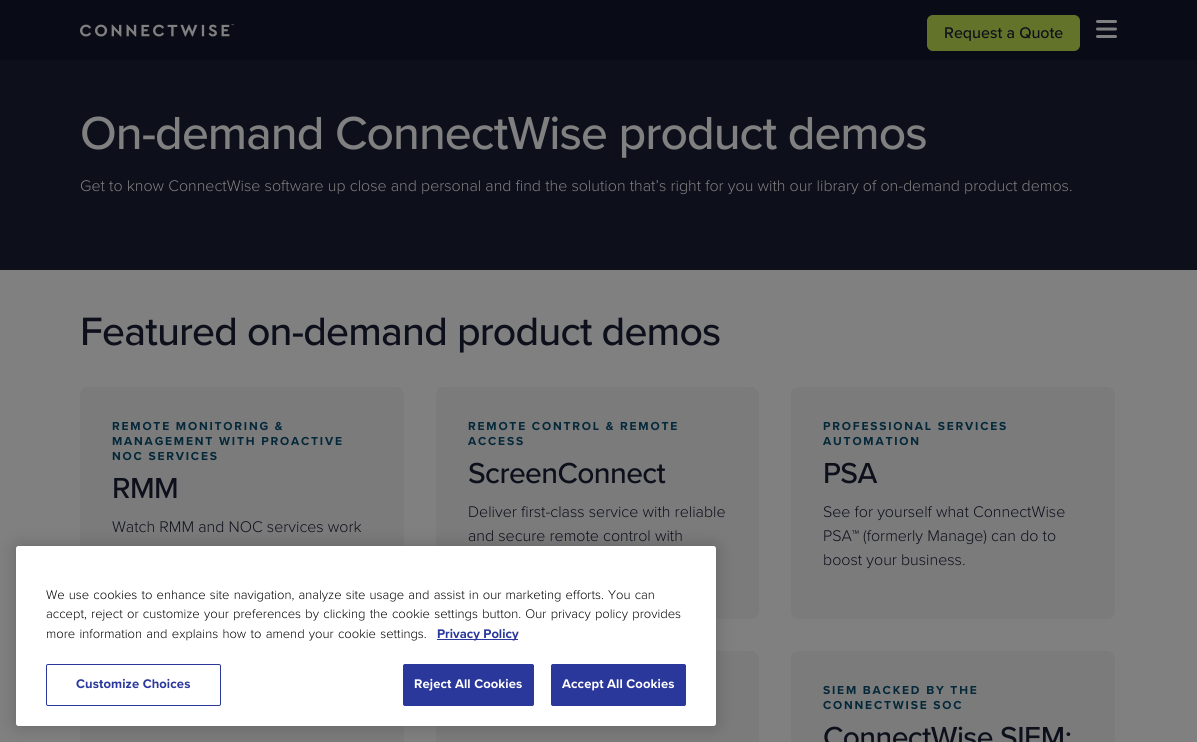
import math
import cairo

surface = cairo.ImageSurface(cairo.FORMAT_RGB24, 1197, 742)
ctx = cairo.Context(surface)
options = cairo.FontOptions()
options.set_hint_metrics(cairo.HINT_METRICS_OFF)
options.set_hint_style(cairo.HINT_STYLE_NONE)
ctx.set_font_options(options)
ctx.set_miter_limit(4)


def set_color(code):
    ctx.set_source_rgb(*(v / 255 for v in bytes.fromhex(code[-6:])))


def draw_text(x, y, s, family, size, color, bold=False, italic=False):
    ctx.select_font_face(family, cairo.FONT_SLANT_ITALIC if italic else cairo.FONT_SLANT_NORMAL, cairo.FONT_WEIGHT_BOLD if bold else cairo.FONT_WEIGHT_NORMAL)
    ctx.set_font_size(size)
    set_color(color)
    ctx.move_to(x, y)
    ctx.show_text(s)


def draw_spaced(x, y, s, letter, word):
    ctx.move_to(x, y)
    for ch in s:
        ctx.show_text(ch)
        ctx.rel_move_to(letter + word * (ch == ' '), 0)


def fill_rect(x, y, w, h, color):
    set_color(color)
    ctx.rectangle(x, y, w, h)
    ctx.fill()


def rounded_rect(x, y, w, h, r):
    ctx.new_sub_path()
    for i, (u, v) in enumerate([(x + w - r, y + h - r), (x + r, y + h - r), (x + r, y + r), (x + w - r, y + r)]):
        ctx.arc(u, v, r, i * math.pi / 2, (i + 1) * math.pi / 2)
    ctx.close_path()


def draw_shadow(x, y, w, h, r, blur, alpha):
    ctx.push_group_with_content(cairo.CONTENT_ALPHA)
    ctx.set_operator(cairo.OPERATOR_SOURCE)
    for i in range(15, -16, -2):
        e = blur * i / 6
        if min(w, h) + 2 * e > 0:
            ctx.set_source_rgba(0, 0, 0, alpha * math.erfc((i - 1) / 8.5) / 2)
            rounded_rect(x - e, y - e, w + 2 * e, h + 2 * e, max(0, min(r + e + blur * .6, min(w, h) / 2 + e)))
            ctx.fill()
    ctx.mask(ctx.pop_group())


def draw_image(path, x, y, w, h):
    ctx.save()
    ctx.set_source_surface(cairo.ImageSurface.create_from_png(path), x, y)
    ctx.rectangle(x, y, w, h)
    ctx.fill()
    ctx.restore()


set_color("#808080")
ctx.paint()
fill_rect(0, 0, 1197, 60, "#090b16")
draw_image("assets/img1.png", 80, 24, 154, 13)
set_color("#63732a")
rounded_rect(927.5, 15.5, 152, 35, 5.5)
ctx.fill_preserve()
ctx.set_line_width(1)
ctx.stroke()
draw_text(944, 38, "Request a Quote", "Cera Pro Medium", 16, "#0d0f1b")
draw_image("assets/img2.png", 1096, 20, 21, 18)
fill_rect(0, 60, 1197, 210, "#0d0f1b")
ctx.set_font_size(48)
set_color("#808080")
draw_spaced(80, 149, "On-demand ConnectWise product demos", -0.95, 0)
draw_text(80, 191, "Get to know ConnectWise software up close and personal and find the solution that’s right for you with our library of on-demand product demos.", "Cera Pro Light", 16, "#808080")
ctx.select_font_face("Cera Pro Medium")
ctx.set_font_size(41)
set_color("#0d0f1b")
draw_spaced(80, 345, "Featured on-demand product demos", -0.8, 0)
set_color("#7b7b7b")
rounded_rect(80, 387, 324, 232, 8)
ctx.fill()
ctx.select_font_face("Cera Pro", cairo.FONT_SLANT_NORMAL, cairo.FONT_WEIGHT_BOLD)
ctx.set_font_size(12)
set_color("#042839")
draw_spaced(112, 430, "REMOTE MONITORING &", 1.8, 0)
draw_spaced(112, 445, "MANAGEMENT WITH PROACTIVE", 1.8, 0)
draw_spaced(112, 460, "NOC SERVICES", 1.8, 0)
ctx.select_font_face("Cera Pro Medium")
ctx.set_font_size(30)
set_color("#0d0f1b")
draw_spaced(112, 498, "RMM", -0.6, 0)
draw_text(112, 532, "Watch RMM and NOC services work", "Cera Pro Light", 16, "#0d0f1b")
set_color("#7b7b7b")
rounded_rect(436, 387, 323, 232, 8)
ctx.fill()
ctx.select_font_face("Cera Pro", cairo.FONT_SLANT_NORMAL, cairo.FONT_WEIGHT_BOLD)
ctx.set_font_size(12)
set_color("#042839")
draw_spaced(468, 430, "REMOTE CONTROL & REMOTE", 1.8, 0)
draw_spaced(468, 445, "ACCESS", 1.8, 0)
ctx.select_font_face("Cera Pro Medium")
ctx.set_font_size(30)
set_color("#0d0f1b")
draw_spaced(468, 483, "ScreenConnect", -0.6, 0)
draw_text(468, 517, "Deliver first-class service with reliable", "Cera Pro Light", 16, "#0d0f1b")
draw_text(468, 541, "and secure remote control with", "Cera Pro Light", 16, "#0d0f1b")
set_color("#7b7b7b")
rounded_rect(791, 387, 324, 232, 8)
ctx.fill()
ctx.select_font_face("Cera Pro", cairo.FONT_SLANT_NORMAL, cairo.FONT_WEIGHT_BOLD)
ctx.set_font_size(12)
set_color("#042839")
draw_spaced(823, 430, "PROFESSIONAL SERVICES", 1.8, 0)
draw_spaced(823, 445, "AUTOMATION", 1.8, 0)
ctx.select_font_face("Cera Pro Medium")
ctx.set_font_size(30)
set_color("#0d0f1b")
draw_spaced(823, 483, "PSA", -0.6, 0)
draw_text(823, 517, "See for yourself what ConnectWise", "Cera Pro Light", 16, "#0d0f1b")
draw_text(823, 541, "PSA™ (formerly Manage) can do to", "Cera Pro Light", 16, "#0d0f1b")
draw_text(823, 565, "boost your business.", "Cera Pro Light", 16, "#0d0f1b")
fill_rect(80, 726, 324, 16, "#7b7b7b")
rounded_rect(436, 651, 323, 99, 8)
ctx.fill()
rounded_rect(791, 651, 324, 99, 8)
ctx.fill()
ctx.select_font_face("Cera Pro", cairo.FONT_SLANT_NORMAL, cairo.FONT_WEIGHT_BOLD)
ctx.set_font_size(12)
set_color("#042839")
draw_spaced(823, 694, "SIEM BACKED BY THE", 1.8, 0)
draw_spaced(823, 709, "CONNECTWISE SOC", 1.8, 0)
ctx.select_font_face("Cera Pro Medium")
ctx.set_font_size(30)
set_color("#0d0f1b")
draw_spaced(823, 747, "ConnectWise SIEM:", -0.6, 0)
set_color("#000000")
draw_shadow(16, 546, 700, 180, 2.5, 9, 0.2)
set_color("#ffffff")
rounded_rect(16, 546, 700, 180, 2.5)
ctx.fill()
ctx.select_font_face("Cera Pro Light")
ctx.set_font_size(13)
set_color("#000000")
draw_spaced(46, 599, "We use cookies to enhance site navigation, analyze site usage and assist in our marketing efforts. You can", 0, 0.8)
draw_spaced(46, 618, "accept, reject or customize your preferences by clicking the cookie settings button. Our privacy policy provides", 0, 0.9)
draw_spaced(46, 638, "more information and explains how to amend your cookie settings.", 0, 0.9)
fill_rect(437, 639, 81, 1, "#29389a")
draw_text(437, 638, "Privacy Policy", "Cera Pro", 13, "#29389a", bold=True)
rounded_rect(46.5, 664.5, 174, 41, 1.5)
ctx.stroke()
draw_spaced(76, 688, "Customize Choices", 0.1, 0)
rounded_rect(403.5, 664.5, 130, 41, 1.5)
ctx.fill_preserve()
ctx.stroke()
set_color("#ffffff")
draw_spaced(414, 688, "Reject All Cookies", 0.1, 0)
set_color("#29389a")
rounded_rect(551.5, 664.5, 134, 41, 1.5)
ctx.fill_preserve()
ctx.stroke()
set_color("#ffffff")
draw_spaced(562, 688, "Accept All Cookies", 0.1, 0)
surface.write_to_png("output.png")
